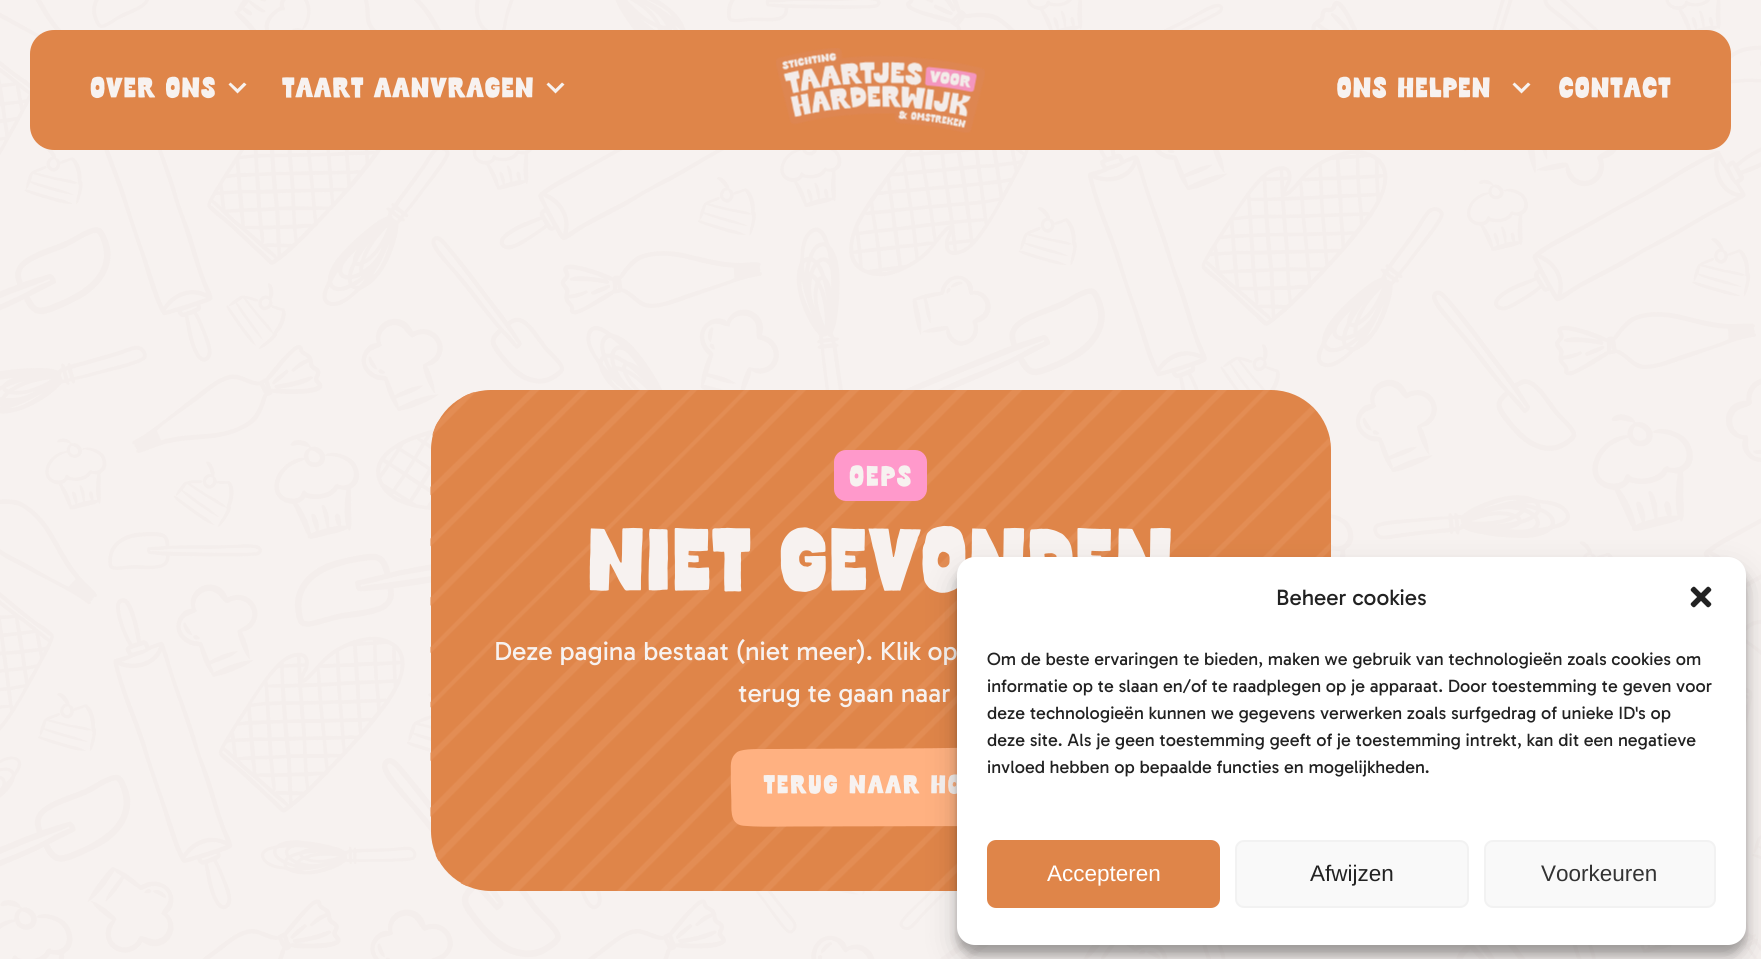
import math
import cairo

surface = cairo.ImageSurface(cairo.FORMAT_RGB24, 1761, 959)
ctx = cairo.Context(surface)
options = cairo.FontOptions()
options.set_hint_metrics(cairo.HINT_METRICS_OFF)
options.set_hint_style(cairo.HINT_STYLE_NONE)
ctx.set_font_options(options)
ctx.set_miter_limit(4)


def set_color(code):
    ctx.set_source_rgb(*(v / 255 for v in bytes.fromhex(code[-6:])))


def draw_text(x, y, s, family, size, color, bold=False, italic=False):
    ctx.select_font_face(family, cairo.FONT_SLANT_ITALIC if italic else cairo.FONT_SLANT_NORMAL, cairo.FONT_WEIGHT_BOLD if bold else cairo.FONT_WEIGHT_NORMAL)
    ctx.set_font_size(size)
    set_color(color)
    ctx.move_to(x, y)
    ctx.show_text(s)


def rounded_rect(x, y, w, h, r):
    ctx.new_sub_path()
    for i, (u, v) in enumerate([(x + w - r, y + h - r), (x + r, y + h - r), (x + r, y + r), (x + w - r, y + r)]):
        ctx.arc(u, v, r, i * math.pi / 2, (i + 1) * math.pi / 2)
    ctx.close_path()


def draw_shadow(x, y, w, h, r, blur, alpha):
    ctx.push_group_with_content(cairo.CONTENT_ALPHA)
    ctx.set_operator(cairo.OPERATOR_SOURCE)
    for i in range(15, -16, -2):
        e = blur * i / 6
        if min(w, h) + 2 * e > 0:
            ctx.set_source_rgba(0, 0, 0, alpha * math.erfc((i - 1) / 8.5) / 2)
            rounded_rect(x - e, y - e, w + 2 * e, h + 2 * e, max(0, min(r + e + blur * .6, min(w, h) / 2 + e)))
            ctx.fill()
    ctx.mask(ctx.pop_group())


def draw_image(path, x, y, w, h):
    ctx.save()
    ctx.set_source_surface(cairo.ImageSurface.create_from_png(path), x, y)
    ctx.rectangle(x, y, w, h)
    ctx.fill()
    ctx.restore()


set_color("#f7f2f0")
ctx.paint()
draw_image("assets/img1.png", 0, 0, 1761, 959)
set_color("#df8549")
rounded_rect(30, 30, 1701, 120, 24)
ctx.fill()
draw_image("assets/img2.png", 90, 76, 125, 23)
set_color("#f7f2f0")
ctx.new_path()
ctx.move_to(230.5, 82.5)
ctx.line_to(237.5, 89)
ctx.line_to(244, 82.5)
ctx.line_to(246.5, 84.5)
ctx.line_to(237.5, 93.5)
ctx.line_to(228.5, 84.5)
ctx.close_path()
ctx.fill()
draw_image("assets/img3.png", 282, 77, 251, 21)
ctx.new_path()
ctx.move_to(548.5, 82.5)
ctx.line_to(555.5, 89)
ctx.line_to(562, 82.5)
ctx.line_to(564.5, 84.5)
ctx.line_to(555.5, 93.5)
ctx.line_to(546.5, 84.5)
ctx.close_path()
ctx.fill()
draw_image("assets/img4.png", 776, 48, 209, 85)
draw_image("assets/img5.png", 1337, 76, 153, 23)
ctx.new_path()
ctx.move_to(1514.5, 82.5)
ctx.line_to(1521.5, 89)
ctx.line_to(1528, 82.5)
ctx.line_to(1530.5, 84.5)
ctx.line_to(1521.5, 93.5)
ctx.line_to(1512.5, 84.5)
ctx.close_path()
ctx.fill()
draw_image("assets/img6.png", 1559, 76, 112, 23)
set_color("#df8549")
rounded_rect(431, 390, 900, 501, 60)
ctx.fill()
draw_image("assets/img7.png", 430, 390, 901, 501)
set_color("#ff99cb")
rounded_rect(834, 450, 93, 51, 12)
ctx.fill()
draw_image("assets/img8.png", 849, 465, 62, 22)
draw_image("assets/img9.png", 589, 525, 582, 68)
draw_text(494, 660, "Deze pagina bestaat (niet meer). Klik op", "Gabarito", 26.4, "#f7f2f0")
draw_text(738, 702, "terug te gaan naar", "Gabarito", 26.4, "#f7f2f0")
draw_image("assets/img10.png", 730, 747, 227, 80)
draw_image("assets/img11.png", 763, 774, 194, 20)
set_color("#000000")
draw_shadow(957, 566, 789, 388, 18, 4.5, 0.23)
draw_shadow(957, 572, 789, 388, 18, 15, 0.19)
set_color("#ffffff")
rounded_rect(957, 557, 789, 388, 18)
ctx.fill()
draw_text(1276, 605, "Beheer cookies", "Gabarito", 22.5, "#222222")
draw_image("assets/img12.png", 1690, 586, 22, 22)
draw_text(987, 665, "Om de beste ervaringen te bieden, maken we gebruik van technologieën zoals cookies om", "Gabarito", 18, "#222222")
draw_text(987, 692, "informatie op te slaan en/of te raadplegen op je apparaat. Door toestemming te geven voor", "Gabarito", 18, "#222222")
draw_text(987, 719, "deze technologieën kunnen we gegevens verwerken zoals surfgedrag of unieke ID's op", "Gabarito", 18, "#222222")
draw_text(987, 746, "deze site. Als je geen toestemming geeft of je toestemming intrekt, kan dit een negatieve", "Gabarito", 18, "#222222")
draw_text(987, 773, "invloed hebben op bepaalde functies en mogelijkheden.", "Gabarito", 18, "#222222")
set_color("#df8549")
rounded_rect(988, 841, 231, 66, 8)
ctx.fill_preserve()
ctx.stroke()
draw_text(1047, 881, "Accepteren", "Liberation Sans", 22.5, "#ffffff")
set_color("#f9f9f9")
rounded_rect(1236, 841, 232, 66, 8)
ctx.fill_preserve()
set_color("#f2f2f2")
ctx.stroke()
draw_text(1310, 881, "Afwijzen", "Liberation Sans", 22.5, "#222222")
set_color("#f9f9f9")
rounded_rect(1485, 841, 230, 66, 8)
ctx.fill_preserve()
set_color("#f2f2f2")
ctx.stroke()
draw_text(1541, 881, "Voorkeuren", "Liberation Sans", 22.5, "#333333")
surface.write_to_png("output.png")
